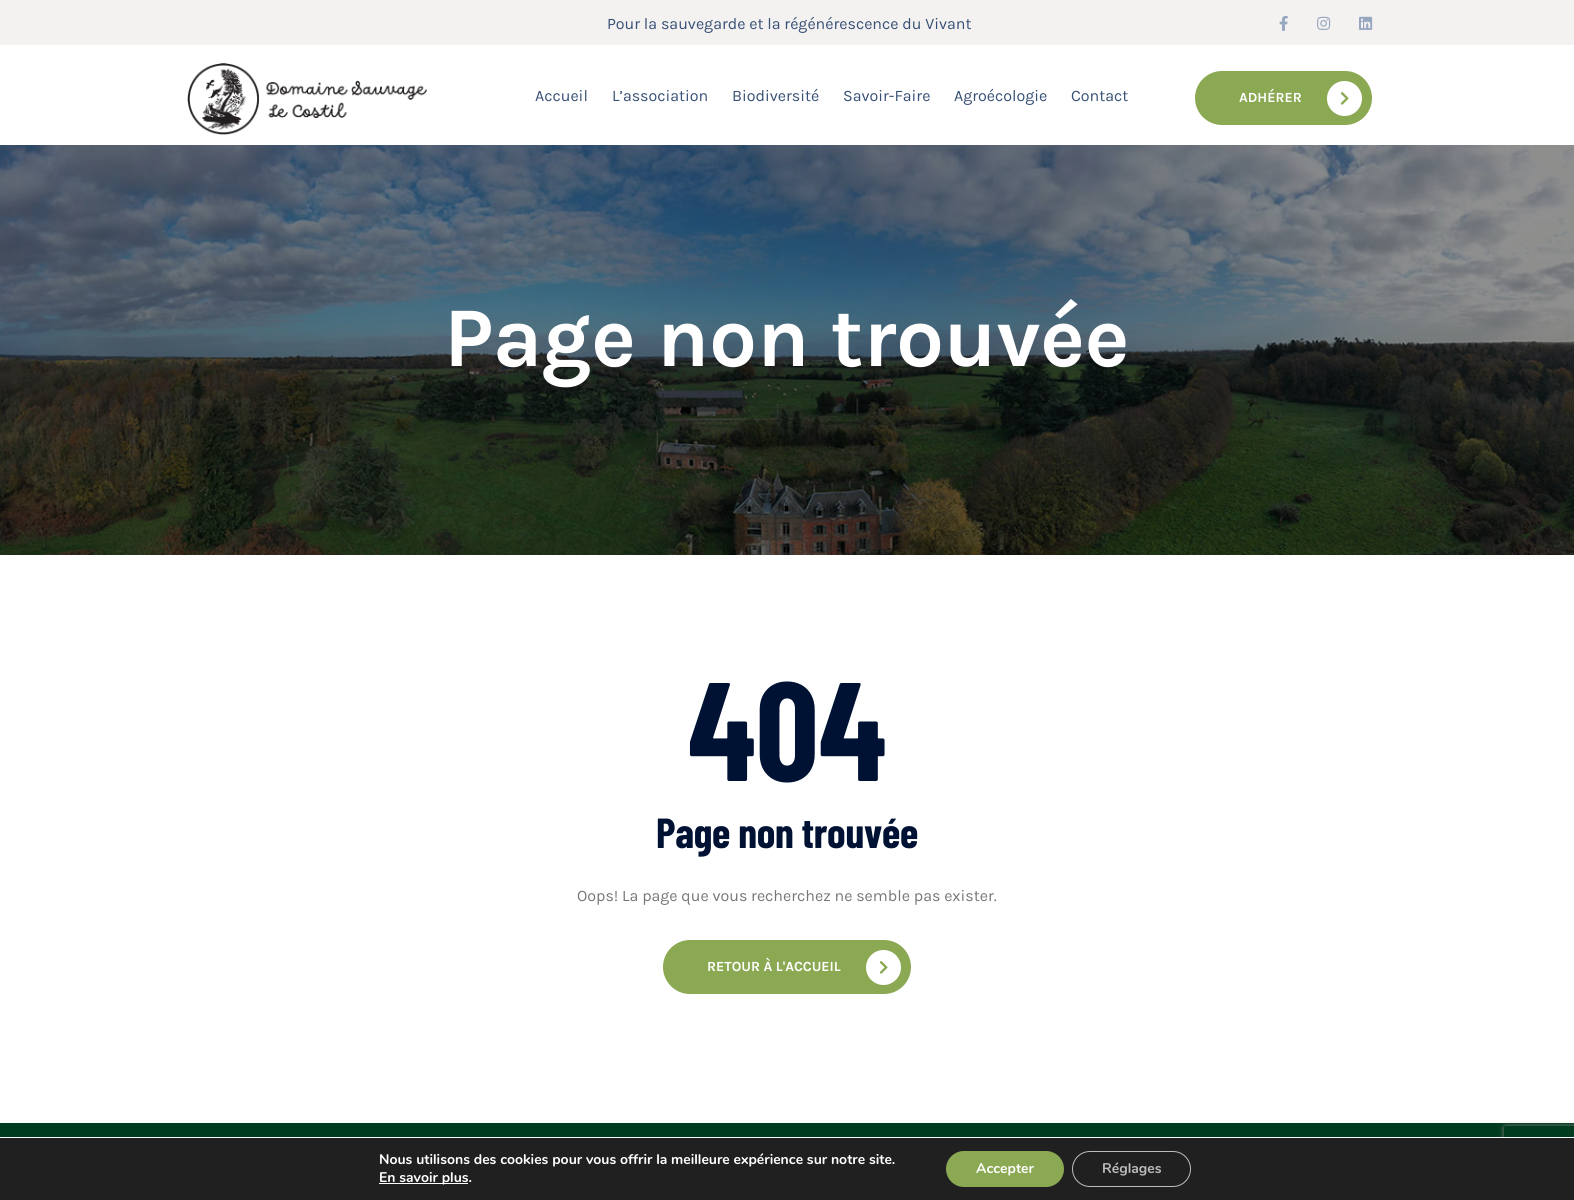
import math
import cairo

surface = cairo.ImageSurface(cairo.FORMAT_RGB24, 1574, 1200)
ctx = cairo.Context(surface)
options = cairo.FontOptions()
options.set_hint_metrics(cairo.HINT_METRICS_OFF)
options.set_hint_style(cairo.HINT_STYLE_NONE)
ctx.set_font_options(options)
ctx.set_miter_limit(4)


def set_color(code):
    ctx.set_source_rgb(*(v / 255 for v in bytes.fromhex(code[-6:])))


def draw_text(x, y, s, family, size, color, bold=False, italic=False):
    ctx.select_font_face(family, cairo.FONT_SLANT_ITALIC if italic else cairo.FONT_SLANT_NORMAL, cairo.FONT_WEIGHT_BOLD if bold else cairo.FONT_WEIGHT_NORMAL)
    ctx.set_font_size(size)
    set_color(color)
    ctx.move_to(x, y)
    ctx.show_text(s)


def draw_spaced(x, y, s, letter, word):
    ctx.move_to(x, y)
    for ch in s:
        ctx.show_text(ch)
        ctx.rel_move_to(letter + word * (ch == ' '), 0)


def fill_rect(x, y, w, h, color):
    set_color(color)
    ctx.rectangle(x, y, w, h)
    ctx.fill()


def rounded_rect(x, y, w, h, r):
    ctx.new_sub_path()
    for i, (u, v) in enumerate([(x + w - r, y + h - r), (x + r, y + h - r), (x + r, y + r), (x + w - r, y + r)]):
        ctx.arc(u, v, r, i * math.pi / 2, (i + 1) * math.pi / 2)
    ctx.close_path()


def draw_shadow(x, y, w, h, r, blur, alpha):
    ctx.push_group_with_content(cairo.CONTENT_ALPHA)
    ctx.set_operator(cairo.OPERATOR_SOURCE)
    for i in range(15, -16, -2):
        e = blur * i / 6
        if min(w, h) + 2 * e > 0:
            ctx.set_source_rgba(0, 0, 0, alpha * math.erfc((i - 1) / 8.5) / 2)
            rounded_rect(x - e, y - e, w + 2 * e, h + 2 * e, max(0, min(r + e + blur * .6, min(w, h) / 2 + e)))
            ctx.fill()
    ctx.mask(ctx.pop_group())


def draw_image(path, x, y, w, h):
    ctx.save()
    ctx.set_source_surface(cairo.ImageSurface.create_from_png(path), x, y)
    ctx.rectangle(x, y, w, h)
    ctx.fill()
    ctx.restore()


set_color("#ffffff")
ctx.paint()
fill_rect(0, 0, 1574, 45, "#f4f2f1")
draw_text(607, 29, "Pour la sauvegarde et la régénérescence du Vivant", "Karla", 16, "#364f75")
draw_image("assets/img1.png", 1279, 15, 9, 16)
draw_image("assets/img2.png", 1317, 16, 14, 14)
draw_image("assets/img3.png", 1359, 16, 14, 14)
draw_image("assets/img4.png", 187, 63, 240, 72)
draw_text(535, 101, "Accueil", "Karla", 16, "#364f75")
draw_text(612, 101, "L’association", "Karla", 16, "#364f75")
draw_text(732, 101, "Biodiversité", "Karla", 16, "#364f75")
draw_text(843, 101, "Savoir-Faire", "Karla", 16, "#364f75")
draw_text(954, 101, "Agroécologie", "Karla", 16, "#364f75")
draw_text(1071, 101, "Contact", "Karla", 16, "#364f75")
set_color("#8ba852")
rounded_rect(1195, 71, 177, 54, 27)
ctx.fill()
draw_text(1239, 102, "ADHÉRER", "Karla", 14, "#ffffff", bold=True)
ctx.new_path()
ctx.arc(1344.5, 98.5, 17.5, 0, 2 * math.pi)
ctx.fill()
draw_image("assets/img5.png", 1340, 92, 9, 13)
draw_image("assets/img6.png", 0, 145, 1574, 410)
ctx.set_font_size(85)
draw_spaced(444, 366, "Page non trouvée", -0.5, 0)
ctx.select_font_face("Barlow Condensed", cairo.FONT_SLANT_NORMAL, cairo.FONT_WEIGHT_BOLD)
ctx.set_font_size(140)
set_color("#001234")
draw_spaced(688, 781, "404", -0.25, 0)
ctx.set_font_size(42)
draw_spaced(656, 848, "Page non trouvée", -0.25, 0)
draw_text(577, 901, "Oops! La page que vous recherchez ne semble pas exister.", "Karla", 16, "#777777")
set_color("#8ba852")
rounded_rect(663, 940, 248, 54, 27)
ctx.fill()
draw_text(707, 971, "RETOUR À L'ACCUEIL", "Karla", 14, "#ffffff", bold=True)
ctx.new_path()
ctx.arc(883.5, 967.5, 17.5, 0, 2 * math.pi)
ctx.fill()
draw_image("assets/img5.png", 879, 961, 9, 13)
fill_rect(0, 1123, 1574, 14, "#003a1f")
ctx.save()
ctx.set_fill_rule(cairo.FILL_RULE_EVEN_ODD)
ctx.new_path()
ctx.move_to(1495, 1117)
ctx.line_to(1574, 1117)
ctx.line_to(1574, 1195)
ctx.line_to(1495, 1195)
ctx.close_path()
ctx.move_to(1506, 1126)
ctx.line_to(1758, 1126)
ctx.curve_to(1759, 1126, 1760, 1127, 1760, 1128)
ctx.line_to(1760, 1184)
ctx.curve_to(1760, 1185, 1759, 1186, 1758, 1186)
ctx.line_to(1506, 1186)
ctx.curve_to(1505, 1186, 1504, 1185, 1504, 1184)
ctx.line_to(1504, 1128)
ctx.curve_to(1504, 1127, 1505, 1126, 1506, 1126)
ctx.close_path()
ctx.clip()
set_color("#808080")
draw_shadow(1504, 1126, 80, 60, 2, 2.5, 1)
ctx.restore()
fill_rect(0, 1138, 1574, 62, "#202020")
fill_rect(1499, 1137, 5, 1, "#ffffff")
draw_text(379, 1164, "Nous utilisons des cookies pour vous offrir la meilleure expérience sur notre site.", "Nunito", 14, "#ffffff", bold=True)
fill_rect(379, 1183, 89, 1, "#ffffff")
draw_text(379, 1182, "En savoir plus.", "Nunito", 14, "#ffffff", bold=True)
set_color("#8ba852")
rounded_rect(946, 1151, 118, 36, 18)
ctx.fill()
draw_text(976, 1173, "Accepter", "Nunito", 14, "#ffffff", bold=True)
rounded_rect(1072.5, 1151.5, 118, 35, 17.5)
set_color("#bcbcbc")
ctx.set_line_width(1)
ctx.stroke()
draw_text(1102, 1173, "Réglages", "Nunito", 14, "#bcbcbc", bold=True)
surface.write_to_png("output.png")
